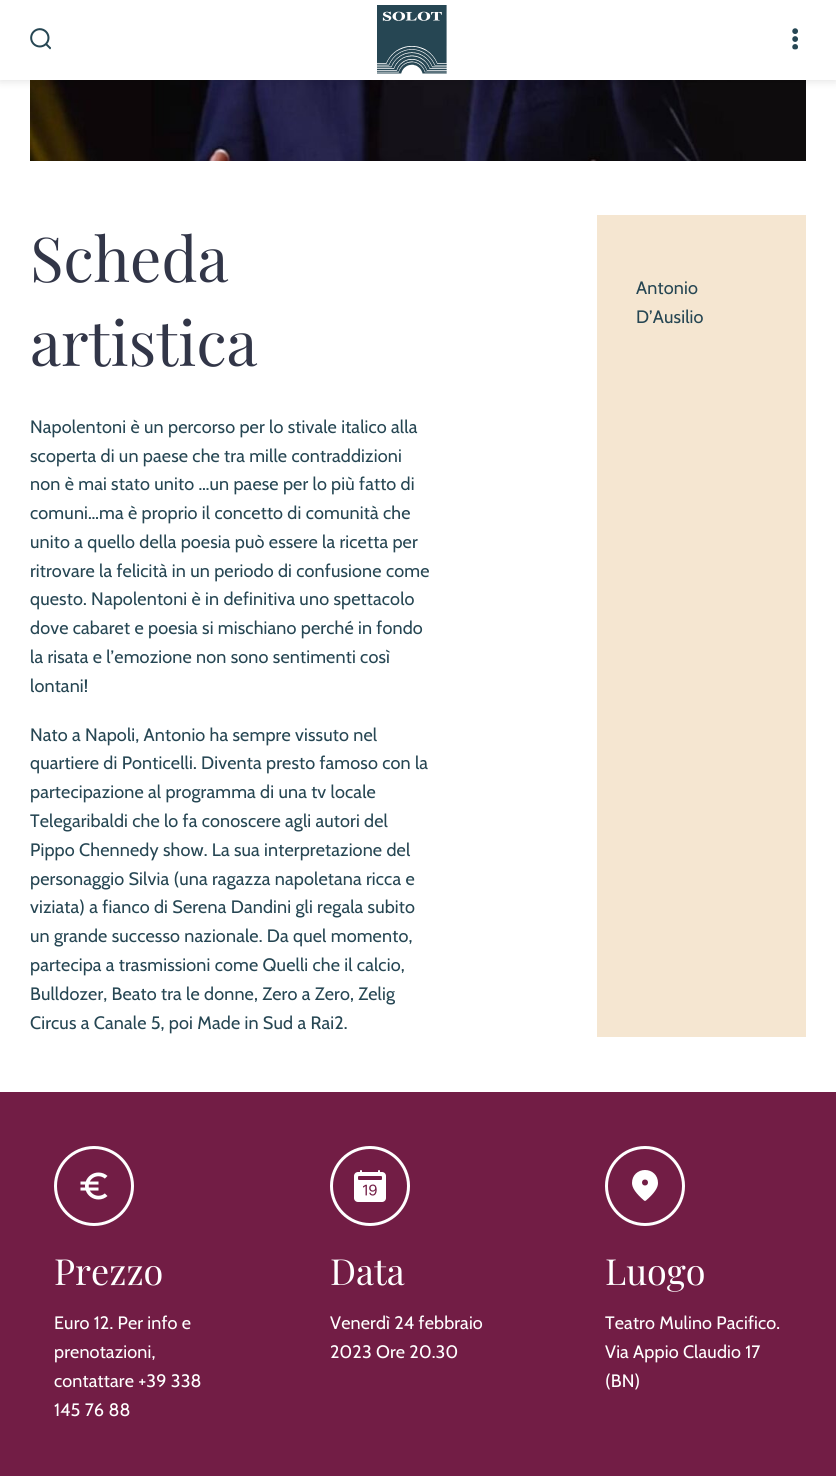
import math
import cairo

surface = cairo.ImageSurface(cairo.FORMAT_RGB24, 836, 1476)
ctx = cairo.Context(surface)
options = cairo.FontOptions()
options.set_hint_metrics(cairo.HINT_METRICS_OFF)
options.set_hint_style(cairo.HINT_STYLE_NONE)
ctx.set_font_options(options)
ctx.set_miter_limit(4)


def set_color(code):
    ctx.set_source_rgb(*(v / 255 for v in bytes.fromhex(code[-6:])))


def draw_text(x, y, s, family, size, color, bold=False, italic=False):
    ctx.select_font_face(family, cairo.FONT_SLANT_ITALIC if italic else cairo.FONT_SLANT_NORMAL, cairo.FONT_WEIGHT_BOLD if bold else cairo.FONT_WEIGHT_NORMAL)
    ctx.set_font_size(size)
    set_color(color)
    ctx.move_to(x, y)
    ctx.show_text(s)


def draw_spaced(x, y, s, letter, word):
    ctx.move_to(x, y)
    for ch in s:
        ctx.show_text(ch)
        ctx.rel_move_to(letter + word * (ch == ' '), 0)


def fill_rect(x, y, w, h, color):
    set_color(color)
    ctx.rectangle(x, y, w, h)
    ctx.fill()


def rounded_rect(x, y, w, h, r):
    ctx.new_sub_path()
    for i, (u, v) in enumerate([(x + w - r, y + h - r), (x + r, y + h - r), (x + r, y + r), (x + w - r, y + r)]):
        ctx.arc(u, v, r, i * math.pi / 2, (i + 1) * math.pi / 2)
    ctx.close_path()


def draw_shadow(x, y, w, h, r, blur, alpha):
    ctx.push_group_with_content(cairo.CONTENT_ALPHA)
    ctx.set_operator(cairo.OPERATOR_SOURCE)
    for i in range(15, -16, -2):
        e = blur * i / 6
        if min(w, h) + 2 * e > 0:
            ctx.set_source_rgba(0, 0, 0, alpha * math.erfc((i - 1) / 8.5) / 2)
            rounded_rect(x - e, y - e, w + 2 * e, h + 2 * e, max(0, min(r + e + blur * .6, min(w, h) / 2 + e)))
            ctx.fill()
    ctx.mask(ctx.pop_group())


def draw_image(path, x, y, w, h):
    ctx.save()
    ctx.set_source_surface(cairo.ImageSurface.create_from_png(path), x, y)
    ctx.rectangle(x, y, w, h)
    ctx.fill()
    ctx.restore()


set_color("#ffffff")
ctx.paint()
draw_image("assets/img4.png", 30, 80, 776, 81)
set_color("#000000")
draw_shadow(0, 0, 836, 80, 0, 5, 0.14)
fill_rect(0, 0, 836, 80, "#ffffff")
draw_image("assets/img1.png", 30, 28, 21, 22)
draw_image("assets/img2.png", 377, 5, 70, 69)
draw_image("assets/img3.png", 792, 28, 6, 22)
draw_text(30, 282, "Scheda", "Playfair Display", 62, "#323648")
draw_text(30, 366, "artistica", "Playfair Display", 62, "#323648")
ctx.select_font_face("Cabin")
ctx.set_font_size(18)
set_color("#264653")
draw_spaced(30, 433, "Napolentoni è un percorso per lo stivale italico alla", 0.15, 0)
draw_spaced(30, 462, "scoperta di un paese che tra mille contraddizioni", 0.15, 0)
draw_spaced(30, 490, "non è mai stato unito …un paese per lo più fatto di", 0.15, 0)
draw_spaced(30, 519, "comuni…ma è proprio il concetto di comunità che", 0.15, 0)
draw_spaced(30, 548, "unito a quello della poesia può essere la ricetta per", 0.15, 0)
draw_spaced(30, 577, "ritrovare la felicità in un periodo di confusione come", 0.15, 0)
draw_spaced(30, 605, "questo. Napolentoni è in definitiva uno spettacolo", 0.15, 0)
draw_spaced(30, 634, "dove cabaret e poesia si mischiano perché in fondo", 0.15, 0)
draw_spaced(30, 663, "la risata e l’emozione non sono sentimenti così", 0.15, 0)
draw_spaced(30, 692, "lontani!", 0.15, 0)
draw_spaced(30, 741, "Nato a Napoli, Antonio ha sempre vissuto nel", 0.15, 0)
draw_spaced(30, 769, "quartiere di Ponticelli. Diventa presto famoso con la", 0.15, 0)
draw_spaced(30, 798, "partecipazione al programma di una tv locale", 0.15, 0)
draw_spaced(30, 827, "Telegaribaldi che lo fa conoscere agli autori del", 0.15, 0)
draw_spaced(30, 856, "Pippo Chennedy show. La sua interpretazione del", 0.15, 0)
draw_spaced(30, 885, "personaggio Silvia (una ragazza napoletana ricca e", 0.15, 0)
draw_spaced(30, 913, "viziata) a fianco di Serena Dandini gli regala subito", 0.15, 0)
draw_spaced(30, 942, "un grande successo nazionale. Da quel momento,", 0.15, 0)
draw_spaced(30, 971, "partecipa a trasmissioni come Quelli che il calcio,", 0.15, 0)
draw_spaced(30, 1000, "Bulldozer, Beato tra le donne, Zero a Zero, Zelig", 0.15, 0)
draw_spaced(30, 1029, "Circus a Canale 5, poi Made in Sud a Rai2.", 0.15, 0)
fill_rect(597, 215, 209, 822, "#f5e6d1")
set_color("#264653")
draw_spaced(636, 294, "Antonio", 0.15, 0)
draw_spaced(636, 323, "D’Ausilio", 0.15, 0)
fill_rect(0, 1092, 836, 384, "#721d45")
draw_image("assets/img5.png", 54, 1146, 80, 80)
draw_text(54, 1285, "Prezzo", "Playfair Display", 36, "#ffffff")
ctx.select_font_face("Cabin")
ctx.set_font_size(18)
draw_spaced(54, 1329, "Euro 12. Per info e", 0.15, 0)
draw_spaced(54, 1358, "prenotazioni,", 0.15, 0)
draw_spaced(54, 1387, "contattare +39 338", 0.15, 0)
draw_spaced(54, 1416, "145 76 88", 0.15, 0)
draw_image("assets/img6.png", 330, 1146, 80, 80)
draw_text(330, 1285, "Data", "Playfair Display", 36, "#ffffff")
ctx.select_font_face("Cabin")
ctx.set_font_size(18)
draw_spaced(330, 1329, "Venerdì 24 febbraio", 0.15, 0)
draw_spaced(330, 1358, "2023 Ore 20.30", 0.15, 0)
ctx.new_path()
ctx.arc(645, 1186, 38.5, 0, 2 * math.pi)
ctx.set_line_width(3)
ctx.stroke()
ctx.new_path()
ctx.move_to(645, 1170)
ctx.curve_to(638, 1170, 632, 1175, 632, 1183)
ctx.curve_to(632, 1188, 636, 1193.5, 644, 1200.5)
ctx.curve_to(644.5, 1201, 645.5, 1201, 646, 1200.5)
ctx.curve_to(654, 1193.5, 658, 1188, 658, 1183)
ctx.curve_to(658, 1175, 652, 1170, 645, 1170)
ctx.close_path()
ctx.move_to(645, 1185.5)
ctx.curve_to(641, 1185.5, 641, 1179.5, 645, 1179.5)
ctx.curve_to(649, 1179.5, 649, 1185.5, 645, 1185.5)
ctx.close_path()
ctx.fill()
draw_text(605, 1285, "Luogo", "Playfair Display", 36, "#ffffff")
ctx.select_font_face("Cabin")
ctx.set_font_size(18)
draw_spaced(605, 1329, "Teatro Mulino Pacifico.", 0.15, 0)
draw_spaced(605, 1358, "Via Appio Claudio 17", 0.15, 0)
draw_spaced(605, 1387, "(BN)", 0.15, 0)
surface.write_to_png("output.png")
